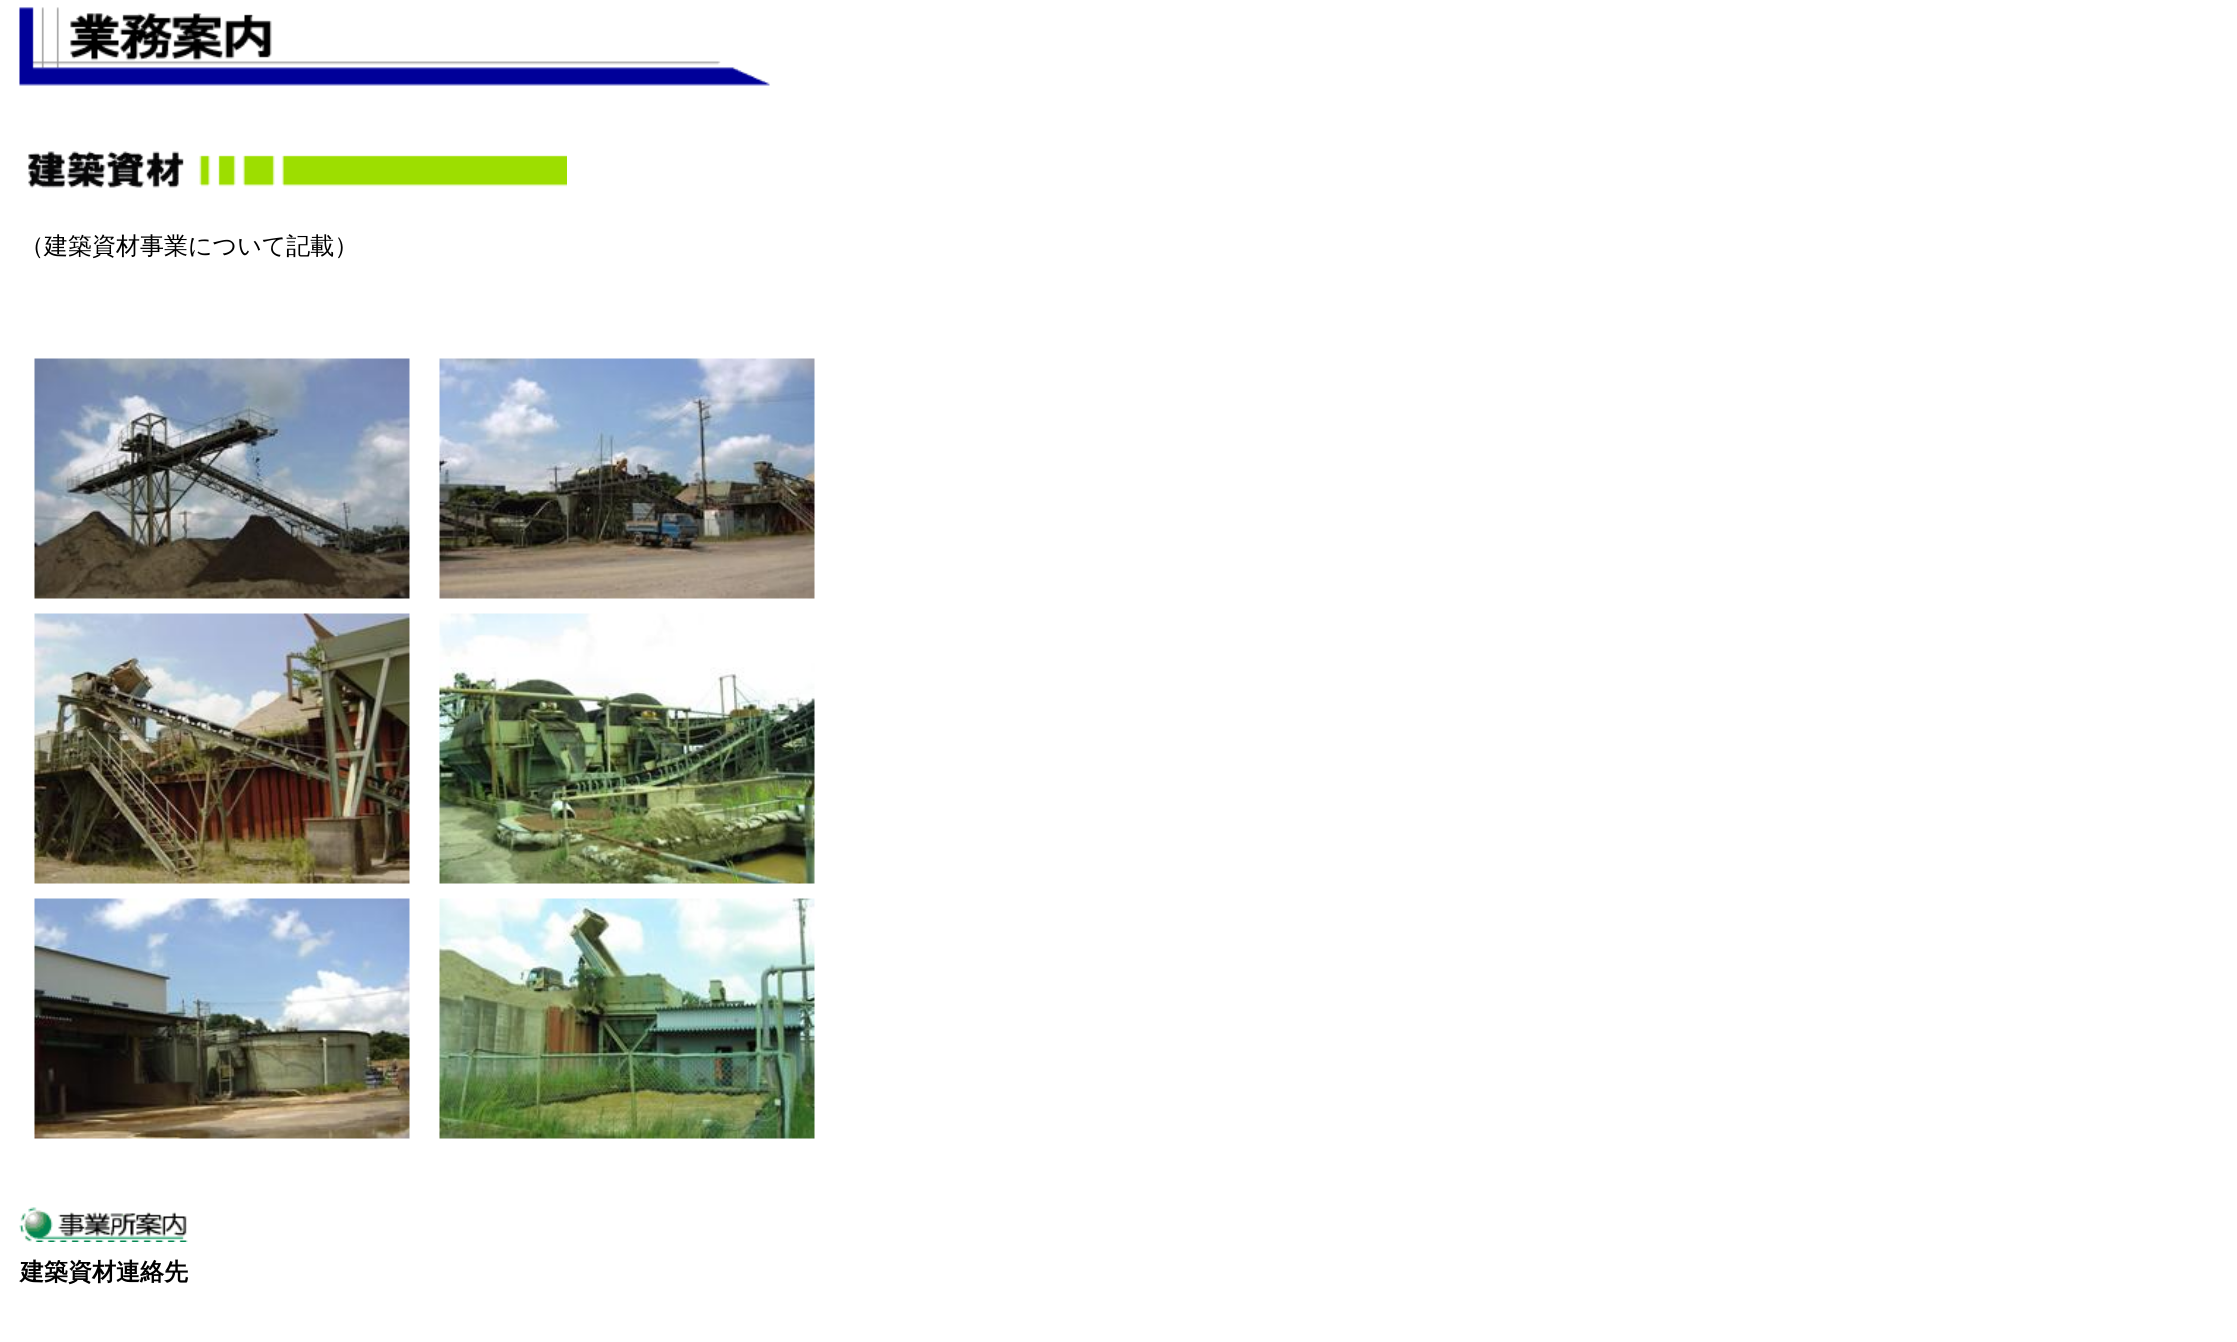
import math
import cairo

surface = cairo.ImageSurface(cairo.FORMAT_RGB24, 2237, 1342)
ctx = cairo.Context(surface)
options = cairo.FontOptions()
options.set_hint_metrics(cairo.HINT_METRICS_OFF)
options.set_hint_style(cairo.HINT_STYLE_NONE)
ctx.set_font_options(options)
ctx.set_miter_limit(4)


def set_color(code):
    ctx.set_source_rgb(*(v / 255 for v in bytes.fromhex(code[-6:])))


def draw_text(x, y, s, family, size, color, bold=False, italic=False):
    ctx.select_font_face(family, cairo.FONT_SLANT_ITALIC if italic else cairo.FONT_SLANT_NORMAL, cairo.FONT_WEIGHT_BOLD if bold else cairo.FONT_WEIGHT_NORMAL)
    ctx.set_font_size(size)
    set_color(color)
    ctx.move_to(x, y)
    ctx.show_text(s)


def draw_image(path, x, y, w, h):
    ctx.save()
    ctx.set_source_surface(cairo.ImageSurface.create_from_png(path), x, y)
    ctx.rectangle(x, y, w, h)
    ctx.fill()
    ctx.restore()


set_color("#ffffff")
ctx.paint()
draw_image("assets/img1.png", 19, 7, 751, 79)
draw_image("assets/img2.png", 28, 151, 539, 37)
draw_text(20, 254, "（建築資材事業について記載）", "WenQuanYi Zen Hei Medium", 24, "#000000")
draw_image("assets/img3.png", 34, 358, 376, 241)
draw_image("assets/img4.png", 439, 358, 376, 241)
draw_image("assets/img5.png", 34, 613, 376, 271)
draw_image("assets/img6.png", 439, 613, 376, 271)
draw_image("assets/img7.png", 34, 898, 376, 241)
draw_image("assets/img8.png", 439, 898, 376, 241)
draw_image("assets/img9.png", 19, 1207, 169, 35)
draw_text(20, 1280, "建築資材連絡先", "WenQuanYi Zen Hei", 24, "#000000", bold=True)
surface.write_to_png("output.png")
